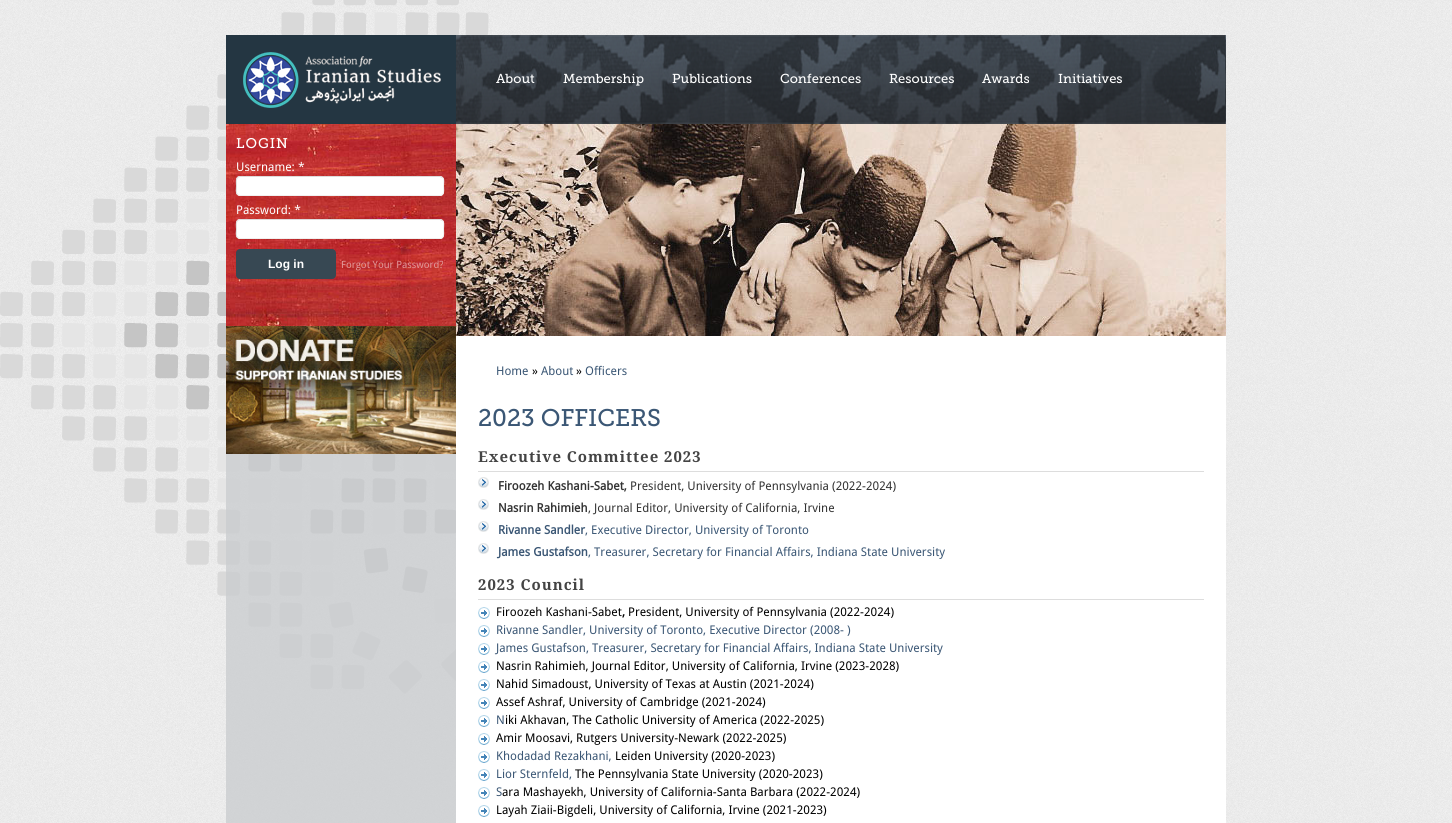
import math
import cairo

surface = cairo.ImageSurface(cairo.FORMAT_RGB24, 1452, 823)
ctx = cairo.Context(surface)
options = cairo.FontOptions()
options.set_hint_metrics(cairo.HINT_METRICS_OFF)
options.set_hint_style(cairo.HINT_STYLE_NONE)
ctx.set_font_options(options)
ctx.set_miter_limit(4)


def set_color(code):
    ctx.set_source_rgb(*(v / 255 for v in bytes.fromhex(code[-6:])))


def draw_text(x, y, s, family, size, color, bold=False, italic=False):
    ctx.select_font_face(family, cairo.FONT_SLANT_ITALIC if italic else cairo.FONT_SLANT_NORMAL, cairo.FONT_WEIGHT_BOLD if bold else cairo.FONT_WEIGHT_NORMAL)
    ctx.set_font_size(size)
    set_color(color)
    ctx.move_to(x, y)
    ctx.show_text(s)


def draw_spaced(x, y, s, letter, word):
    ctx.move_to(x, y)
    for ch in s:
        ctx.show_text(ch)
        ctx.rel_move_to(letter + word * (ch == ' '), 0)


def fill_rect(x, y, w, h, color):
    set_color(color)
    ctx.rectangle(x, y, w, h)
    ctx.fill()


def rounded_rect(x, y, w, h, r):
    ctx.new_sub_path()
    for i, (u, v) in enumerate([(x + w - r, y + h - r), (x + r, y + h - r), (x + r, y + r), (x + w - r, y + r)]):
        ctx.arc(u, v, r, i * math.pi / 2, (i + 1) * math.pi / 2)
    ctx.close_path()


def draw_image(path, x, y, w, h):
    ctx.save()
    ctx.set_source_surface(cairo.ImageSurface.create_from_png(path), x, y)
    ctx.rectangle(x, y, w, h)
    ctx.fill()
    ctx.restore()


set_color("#ffffff")
ctx.paint()
draw_image("assets/img1.png", 0, 0, 1452, 823)
draw_image("assets/img2.png", 0, 0, 489, 694)
draw_image("assets/img3.png", 226, 35, 230, 89)
draw_image("assets/img4.png", 456, 35, 770, 89)
draw_text(496, 83, "About", "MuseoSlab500", 13, "#ffffff")
draw_text(563, 83, "Membership", "MuseoSlab500", 13, "#ffffff")
draw_text(672, 83, "Publications", "MuseoSlab500", 13, "#ffffff")
draw_text(780, 83, "Conferences", "MuseoSlab500", 13, "#ffffff")
draw_text(889, 83, "Resources", "MuseoSlab500", 13, "#ffffff")
draw_text(982, 83, "Awards", "MuseoSlab500", 13, "#ffffff")
draw_text(1058, 83, "Initiatives", "MuseoSlab500", 13, "#ffffff")
draw_image("assets/img5.png", 226, 336, 1000, 487)
draw_image("assets/img6.png", 226, 124, 230, 202)
ctx.set_font_size(14)
draw_spaced(236, 148, "LOGIN", 1, 0)
draw_text(236, 171, "Username: *", "Droid Sans", 12, "#ffffff")
rounded_rect(236, 176, 208, 20, 4)
ctx.fill()
ctx.new_path()
ctx.move_to(442.5, 177.5)
ctx.curve_to(444.5, 179.5, 443.5, 183.5, 443.5, 186)
ctx.curve_to(443.5, 188.5, 444.5, 193, 442, 195)
ctx.line_to(440, 195.5)
ctx.line_to(240, 195.5)
ctx.line_to(237.5, 194.5)
set_color("#f0f0f0")
ctx.set_line_width(1)
ctx.stroke()
ctx.new_path()
ctx.move_to(237.5, 194.5)
ctx.curve_to(235.5, 192.5, 236.5, 188.5, 236.5, 186)
ctx.curve_to(236.5, 183.5, 235.5, 179, 238, 177)
ctx.line_to(240, 176.5)
ctx.line_to(440, 176.5)
ctx.line_to(442.5, 177.5)
set_color("#dcdcdc")
ctx.stroke()
draw_text(236, 214, "Password: *", "Droid Sans", 12, "#ffffff")
rounded_rect(236, 219, 208, 20, 4)
ctx.fill()
ctx.new_path()
ctx.move_to(442.5, 220.5)
ctx.curve_to(444.5, 222.5, 443.5, 226.5, 443.5, 229)
ctx.curve_to(443.5, 231.5, 444.5, 236, 442, 238)
ctx.line_to(440, 238.5)
ctx.line_to(240, 238.5)
ctx.line_to(237.5, 237.5)
set_color("#f0f0f0")
ctx.stroke()
ctx.new_path()
ctx.move_to(237.5, 237.5)
ctx.curve_to(235.5, 235.5, 236.5, 231.5, 236.5, 229)
ctx.curve_to(236.5, 226.5, 235.5, 222, 238, 220)
ctx.line_to(240, 219.5)
ctx.line_to(440, 219.5)
ctx.line_to(442.5, 220.5)
set_color("#dcdcdc")
ctx.stroke()
set_color("#374853")
rounded_rect(236, 249, 100, 30, 4)
ctx.fill()
draw_text(268, 268, "Log in", "Liberation Sans", 12, "#ffffff", bold=True)
draw_text(341, 268, "Forgot Your Password?", "Droid Sans", 10, "#e19999")
draw_image("assets/img7.png", 226, 326, 230, 128)
draw_image("assets/img8.png", 456, 124, 770, 212)
draw_text(496, 375, "Home", "Droid Sans", 12, "#3b5775")
draw_text(532, 375, "»", "Droid Sans", 12, "#000000")
draw_text(541, 375, "About", "Droid Sans", 12, "#3b5775")
draw_text(576, 375, "»", "Droid Sans", 12, "#000000")
draw_text(585, 375, "Officers", "Droid Sans", 12, "#3b5775")
draw_text(478, 426, "2023 OFFICERS", "MuseoSlab500", 24, "#3b5775")
fill_rect(478, 471, 726, 1, "#dddddd")
ctx.select_font_face("Droid Serif", cairo.FONT_SLANT_NORMAL, cairo.FONT_WEIGHT_BOLD)
ctx.set_font_size(15)
set_color("#444444")
draw_spaced(478, 462, "Executive Committee 2023", 1, 0)
draw_image("assets/img9.png", 478, 477, 11, 11)
draw_text(498, 490, "Firoozeh Kashani-Sabet,", "Droid Sans", 12, "#333333", bold=True)
draw_text(630, 490, "President, University of Pennsylvania (2022-2024)", "Droid Sans", 12, "#333333")
draw_image("assets/img9.png", 478, 499, 11, 11)
draw_text(498, 512, "Nasrin Rahimieh", "Droid Sans", 12, "#333333", bold=True)
draw_text(588, 512, ", Journal Editor, University of California, Irvine", "Droid Sans", 12, "#333333")
draw_image("assets/img9.png", 478, 521, 11, 11)
draw_text(498, 534, "Rivanne Sandler", "Droid Sans", 12, "#3b5775", bold=True)
draw_text(585, 534, ", Executive Director, University of Toronto", "Droid Sans", 12, "#3b5775")
draw_image("assets/img9.png", 478, 543, 11, 11)
draw_text(498, 556, "James Gustafson", "Droid Sans", 12, "#3b5775", bold=True)
draw_text(588, 556, ", Treasurer, Secretary for Financial Affairs, Indiana State University", "Droid Sans", 12, "#3b5775")
fill_rect(478, 599, 726, 1, "#dddddd")
ctx.select_font_face("Droid Serif", cairo.FONT_SLANT_NORMAL, cairo.FONT_WEIGHT_BOLD)
ctx.set_font_size(15)
set_color("#444444")
draw_spaced(478, 590, "2023 Council", 1, 0)
draw_image("assets/img10.png", 478, 607, 12, 12)
draw_text(496, 616, "Firoozeh Kashani-Sabet", "Droid Sans", 12, "#000000")
draw_text(622, 616, ",", "Droid Sans", 12, "#000000", bold=True)
draw_text(628, 616, "President, University of Pennsylvania (2022-2024)", "Droid Sans", 12, "#000000")
draw_image("assets/img10.png", 478, 625, 12, 12)
draw_text(496, 634, "Rivanne Sandler, University of Toronto, Executive Director (2008- )", "Droid Sans", 12, "#3b5775")
draw_image("assets/img10.png", 478, 643, 12, 12)
draw_text(496, 652, "James Gustafson, Treasurer, Secretary for Financial Affairs, Indiana State University", "Droid Sans", 12, "#3b5775")
draw_image("assets/img10.png", 478, 661, 12, 12)
draw_text(496, 670, "Nasrin Rahimieh, Journal Editor, University of California, Irvine (2023-2028)", "Droid Sans", 12, "#000000")
draw_image("assets/img10.png", 478, 679, 12, 12)
draw_text(496, 688, "Nahid Simadoust, University of Texas at Austin (2021-2024)", "Droid Sans", 12, "#000000")
draw_image("assets/img10.png", 478, 697, 12, 12)
draw_text(496, 706, "Assef Ashraf, University of Cambridge (2021-2024)", "Droid Sans", 12, "#000000")
draw_image("assets/img10.png", 478, 715, 12, 12)
draw_text(496, 724, "N", "Droid Sans", 12, "#3b5775")
draw_text(505, 724, "iki Akhavan, The Catholic University of America (2022-2025)", "Droid Sans", 12, "#000000")
draw_image("assets/img10.png", 478, 733, 12, 12)
draw_text(496, 742, "Amir Moosavi, Rutgers University-Newark (2022-2025)", "Droid Sans", 12, "#000000")
draw_image("assets/img10.png", 478, 751, 12, 12)
draw_text(496, 760, "Khodadad Rezakhani,", "Droid Sans", 12, "#3b5775")
draw_text(615, 760, "Leiden University (2020-2023)", "Droid Sans", 12, "#000000")
draw_image("assets/img10.png", 478, 769, 12, 12)
draw_text(496, 778, "Lior Sternfeld,", "Droid Sans", 12, "#3b5775")
draw_text(575, 778, "The Pennsylvania State University (2020-2023)", "Droid Sans", 12, "#000000")
draw_image("assets/img10.png", 478, 787, 12, 12)
draw_text(496, 796, "S", "Droid Sans", 12, "#3b5775")
draw_text(502, 796, "ara Mashayekh, University of California-Santa Barbara (2022-2024)", "Droid Sans", 12, "#000000")
draw_image("assets/img10.png", 478, 805, 12, 12)
draw_text(496, 814, "Layah Ziaii-Bigdeli, University of California, Irvine (2021-2023)", "Droid Sans", 12, "#000000")
surface.write_to_png("output.png")
